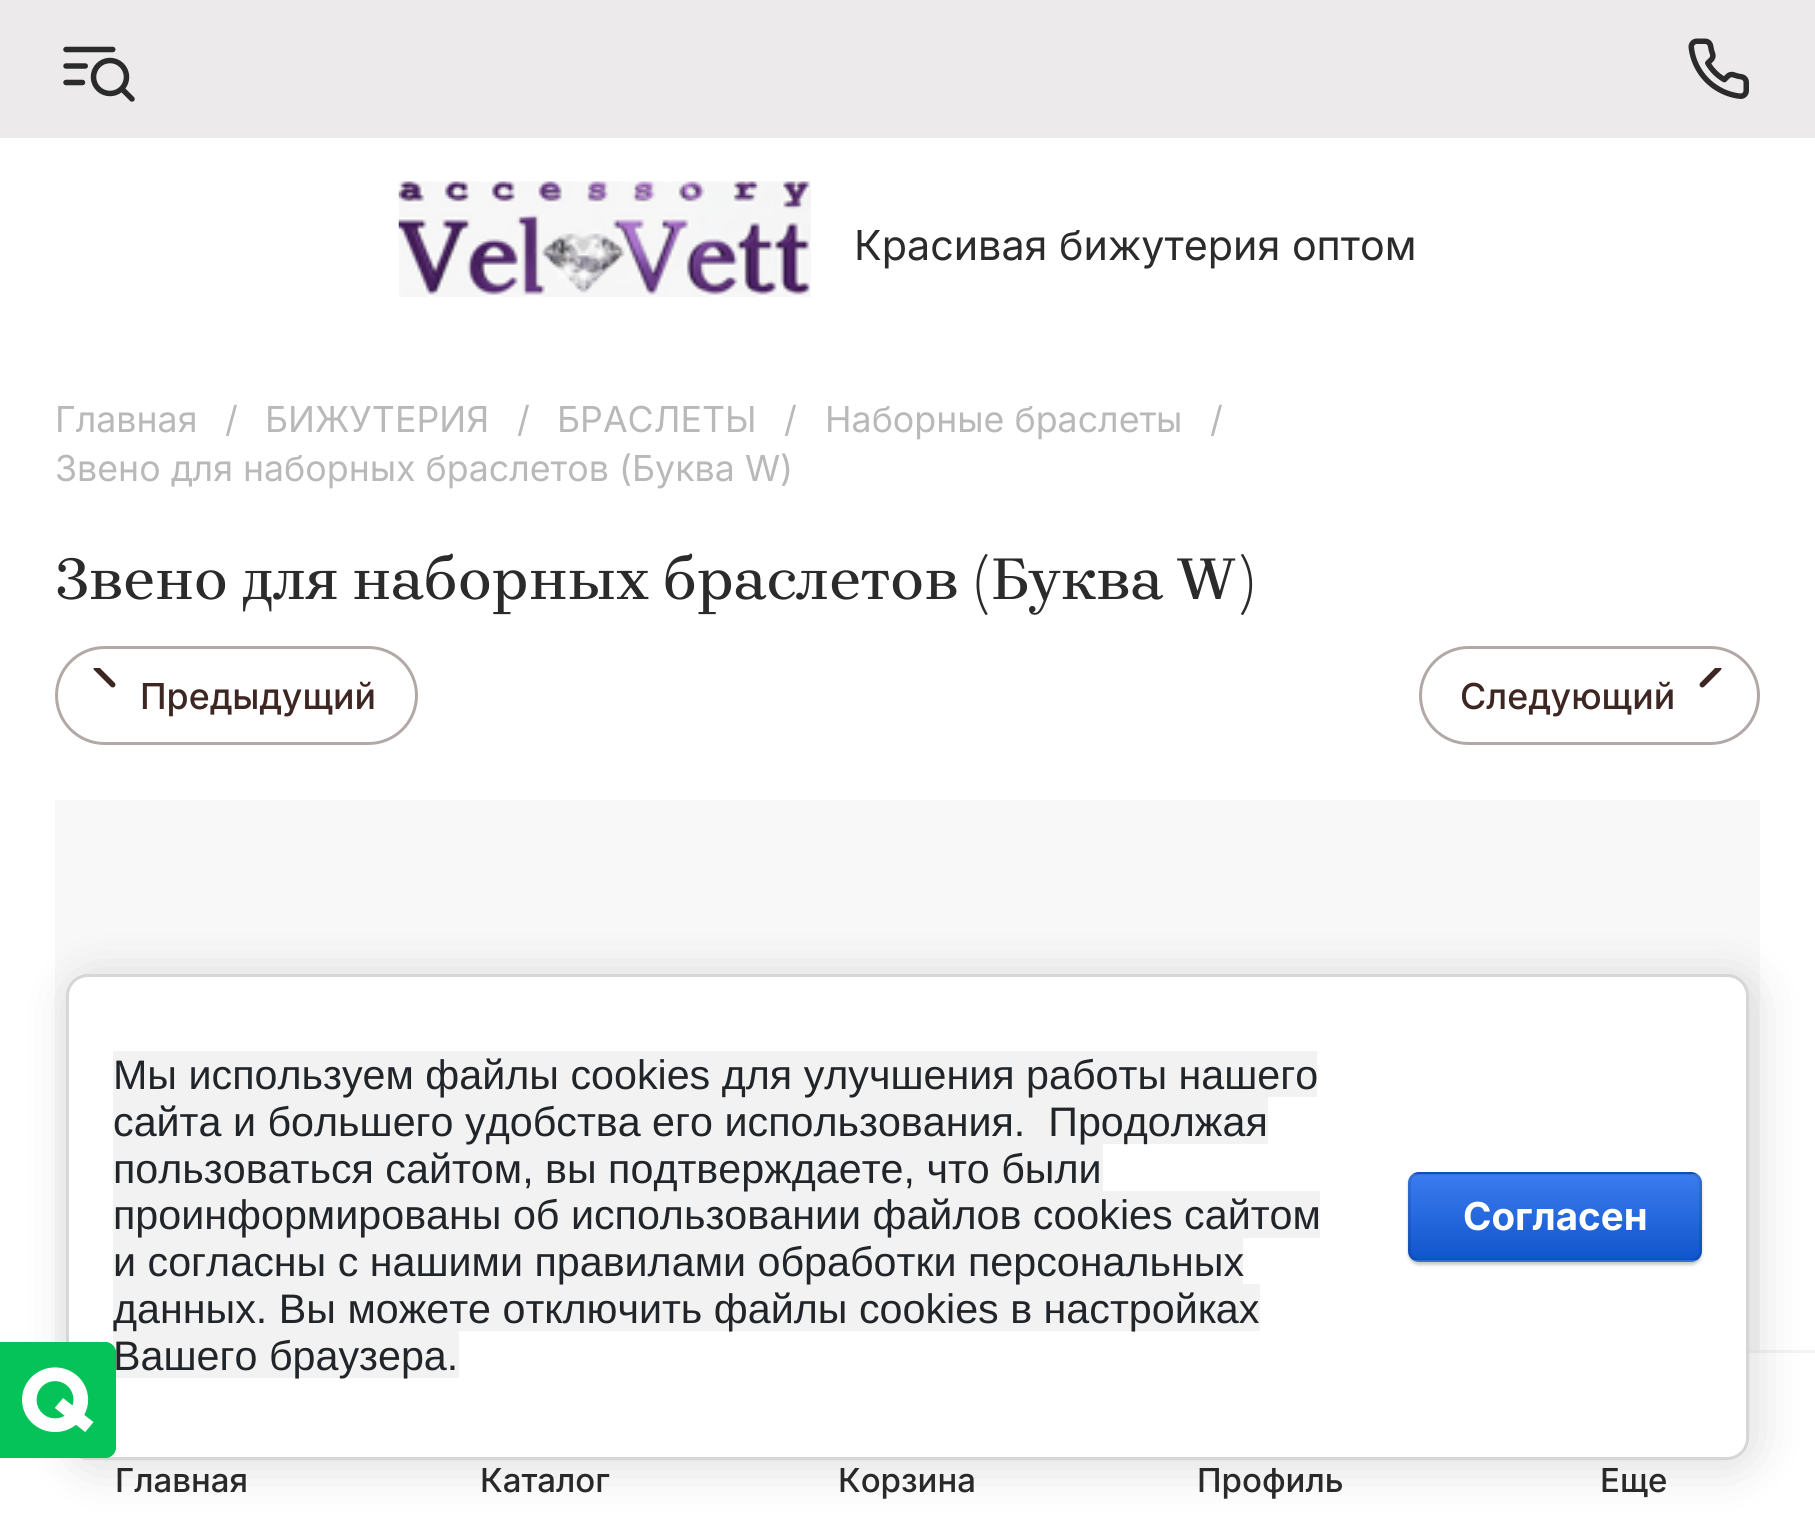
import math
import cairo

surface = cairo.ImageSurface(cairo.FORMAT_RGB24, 1815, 1524)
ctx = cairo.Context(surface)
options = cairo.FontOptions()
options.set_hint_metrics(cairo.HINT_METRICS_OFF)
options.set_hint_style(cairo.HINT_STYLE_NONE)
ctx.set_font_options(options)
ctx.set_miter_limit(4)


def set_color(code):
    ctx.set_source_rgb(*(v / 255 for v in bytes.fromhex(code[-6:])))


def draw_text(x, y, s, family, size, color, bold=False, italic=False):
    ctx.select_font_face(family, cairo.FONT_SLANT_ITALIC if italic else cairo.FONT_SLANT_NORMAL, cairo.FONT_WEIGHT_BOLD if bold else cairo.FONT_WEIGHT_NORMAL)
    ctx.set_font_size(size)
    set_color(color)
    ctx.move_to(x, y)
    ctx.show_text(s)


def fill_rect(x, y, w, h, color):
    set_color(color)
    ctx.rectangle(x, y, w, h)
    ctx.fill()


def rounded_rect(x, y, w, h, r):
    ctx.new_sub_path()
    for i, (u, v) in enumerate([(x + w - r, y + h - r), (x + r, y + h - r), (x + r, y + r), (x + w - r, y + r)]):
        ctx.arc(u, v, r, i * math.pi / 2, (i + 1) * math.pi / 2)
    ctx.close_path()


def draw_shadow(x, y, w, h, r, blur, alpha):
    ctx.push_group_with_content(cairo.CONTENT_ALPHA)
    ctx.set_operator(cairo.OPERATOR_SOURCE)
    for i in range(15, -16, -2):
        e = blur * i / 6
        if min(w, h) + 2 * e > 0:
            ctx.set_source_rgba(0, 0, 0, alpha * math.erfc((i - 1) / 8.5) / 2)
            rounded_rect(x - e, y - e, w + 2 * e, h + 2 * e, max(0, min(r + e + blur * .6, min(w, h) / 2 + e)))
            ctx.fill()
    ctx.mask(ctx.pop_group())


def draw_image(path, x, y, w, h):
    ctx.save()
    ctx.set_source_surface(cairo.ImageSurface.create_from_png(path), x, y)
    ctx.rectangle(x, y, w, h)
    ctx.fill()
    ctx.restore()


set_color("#ffffff")
ctx.paint()
fill_rect(0, 0, 1815, 138, "#eceaea")
draw_image("assets/img1.png", 63, 46, 72, 56)
draw_image("assets/img2.png", 1688, 38, 61, 61)
draw_image("assets/img3.png", 398, 181, 413, 116)
draw_text(854, 260, "Красивая бижутерия оптом", "Inter", 41.25, "#2b2b2b")
draw_text(55, 432, "Главная", "Inter", 35.75, "#b9b9b9")
draw_text(225, 432, "/", "Inter", 35.75, "#b9b9b9")
draw_text(265, 432, "БИЖУТЕРИЯ", "Inter", 35.75, "#b9b9b9")
draw_text(517, 432, "/", "Inter", 35.75, "#b9b9b9")
draw_text(557, 432, "БРАСЛЕТЫ", "Inter", 35.75, "#b9b9b9")
draw_text(784, 432, "/", "Inter", 35.75, "#b9b9b9")
draw_text(825, 432, "Наборные браслеты", "Inter", 35.75, "#b9b9b9")
draw_text(1210, 432, "/", "Inter", 35.75, "#b9b9b9")
draw_text(55, 481, "Звено для наборных браслетов (Буква W)", "Inter", 35.75, "#b9b9b9")
draw_text(55, 599, "Звено для наборных браслетов (Буква W)", "Brygada 1918 Medium", 60.5, "#2b2b2b")
rounded_rect(56.5, 647.5, 360, 96, 48)
set_color("#b2a9a7")
ctx.set_line_width(3)
ctx.stroke()
draw_image("assets/img4.png", 93, 668, 23, 20)
draw_text(140, 709, "Предыдущий", "Inter Medium", 35.75, "#3e2723")
rounded_rect(1420.5, 647.5, 338, 96, 48)
set_color("#b2a9a7")
ctx.stroke()
draw_image("assets/img5.png", 1699, 668, 23, 20)
draw_text(1460, 709, "Следующий", "Inter Medium", 35.75, "#3e2723")
ctx.set_source_rgba(0, 0, 0, 0.03)
ctx.rectangle(55, 800, 1705, 550)
ctx.fill()
fill_rect(1749, 1350, 66, 3, "#f3f3f3")
draw_text(115, 1492, "Главная", "Inter Medium", 33, "#2b2b2b")
draw_text(480, 1492, "Каталог", "Inter Medium", 33, "#2b2b2b")
draw_text(838, 1492, "Корзина", "Inter Medium", 33, "#2b2b2b")
draw_text(1197, 1492, "Профиль", "Inter Medium", 33, "#2b2b2b")
draw_text(1600, 1492, "Еще", "Inter Medium", 33, "#2b2b2b")
set_color("#000000")
draw_shadow(72, 979, 1683, 487, 22, 25, 0.14)
set_color("#ffffff")
rounded_rect(67.5, 975.5, 1680, 483, 20.5)
ctx.fill_preserve()
set_color("#d6d6d6")
ctx.stroke()
fill_rect(113, 1051, 1204, 46, "#f2f2f2")
fill_rect(113, 1097, 1155, 47, "#f2f2f2")
draw_text(113, 1089, "Мы используем файлы cookies для улучшения работы нашего", "Liberation Sans", 41.25, "#212529")
fill_rect(113, 1144, 990, 47, "#f2f2f2")
draw_text(113, 1136, "сайта и большего удобства его использования.  Продолжая", "Liberation Sans", 41.25, "#212529")
fill_rect(113, 1191, 1207, 47, "#f2f2f2")
draw_text(113, 1183, "пользоваться сайтом, вы подтверждаете, что были", "Liberation Sans", 41.25, "#212529")
draw_text(113, 1229, "проинформированы об использовании файлов cookies сайтом", "Liberation Sans", 41.25, "#212529")
fill_rect(113, 1238, 1130, 46, "#f2f2f2")
fill_rect(113, 1284, 1147, 47, "#f2f2f2")
draw_text(113, 1276, "и согласны с нашими правилами обработки персональных", "Liberation Sans", 41.25, "#212529")
fill_rect(113, 1331, 346, 47, "#f2f2f2")
draw_text(113, 1323, "данных. Вы можете отключить файлы cookies в настройках", "Liberation Sans", 41.25, "#212529")
draw_text(113, 1370, "Вашего браузера.", "Liberation Sans", 41.25, "#212529")
set_color("#000000")
draw_shadow(1408, 1174, 294, 91, 11, 1.5, 0.2)
ctx.save()
rounded_rect(1408, 1172, 294, 90, 11)
ctx.clip()
gradient = cairo.LinearGradient(1555, 1089, 1555, 1174)
gradient.add_color_stop_rgba(0, 0.231, 0.486, 0.937, 1)
gradient.add_color_stop_rgba(1, 0.067, 0.333, 0.8, 1)
ctx.set_source(gradient)
ctx.rectangle(1408, 1172, 294, 2)
ctx.fill()
gradient = cairo.LinearGradient(1555, 1174, 1555, 1260)
gradient.add_color_stop_rgba(0, 0.231, 0.486, 0.937, 1)
gradient.add_color_stop_rgba(1, 0.067, 0.333, 0.8, 1)
ctx.set_source(gradient)
ctx.rectangle(1408, 1174, 294, 86)
ctx.fill()
gradient = cairo.LinearGradient(1555, 1260, 1555, 1345)
gradient.add_color_stop_rgba(0, 0.231, 0.486, 0.937, 1)
gradient.add_color_stop_rgba(1, 0.067, 0.333, 0.8, 1)
ctx.set_source(gradient)
ctx.rectangle(1408, 1260, 294, 2)
ctx.fill()
ctx.restore()
rounded_rect(1409.5, 1173.5, 291, 87, 9.5)
ctx.set_source_rgba(0, 0, 0, 0.1)
ctx.stroke()
draw_text(1463, 1230, "Согласен", "Inter", 38.5, "#ffffff", bold=True)
set_color("#06c359")
ctx.new_path()
ctx.move_to(0, 1342)
ctx.line_to(105, 1342)
ctx.curve_to(111, 1342, 116, 1347, 116, 1353)
ctx.line_to(116, 1447)
ctx.curve_to(116, 1453, 111, 1458, 105, 1458)
ctx.line_to(0, 1458)
ctx.close_path()
ctx.fill()
rounded_rect(0, 1342, 116, 116, 11)
ctx.fill()
draw_image("assets/img6.png", 22, 1367, 72, 66)
surface.write_to_png("output.png")
